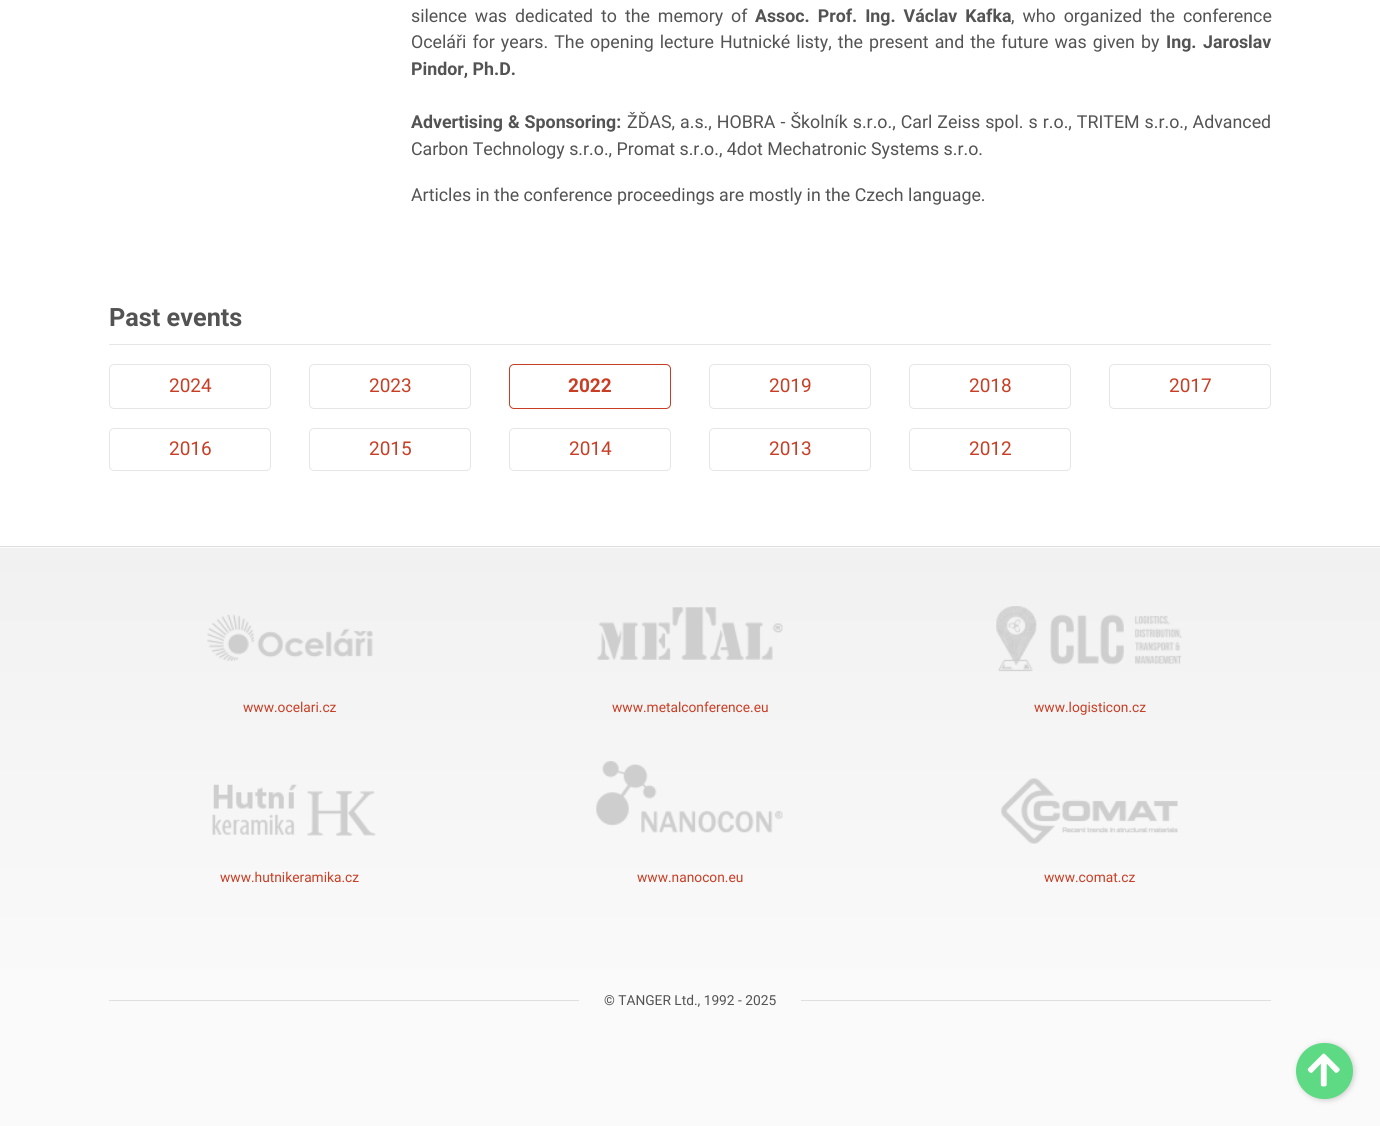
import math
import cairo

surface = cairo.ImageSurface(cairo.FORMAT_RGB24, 1380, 1126)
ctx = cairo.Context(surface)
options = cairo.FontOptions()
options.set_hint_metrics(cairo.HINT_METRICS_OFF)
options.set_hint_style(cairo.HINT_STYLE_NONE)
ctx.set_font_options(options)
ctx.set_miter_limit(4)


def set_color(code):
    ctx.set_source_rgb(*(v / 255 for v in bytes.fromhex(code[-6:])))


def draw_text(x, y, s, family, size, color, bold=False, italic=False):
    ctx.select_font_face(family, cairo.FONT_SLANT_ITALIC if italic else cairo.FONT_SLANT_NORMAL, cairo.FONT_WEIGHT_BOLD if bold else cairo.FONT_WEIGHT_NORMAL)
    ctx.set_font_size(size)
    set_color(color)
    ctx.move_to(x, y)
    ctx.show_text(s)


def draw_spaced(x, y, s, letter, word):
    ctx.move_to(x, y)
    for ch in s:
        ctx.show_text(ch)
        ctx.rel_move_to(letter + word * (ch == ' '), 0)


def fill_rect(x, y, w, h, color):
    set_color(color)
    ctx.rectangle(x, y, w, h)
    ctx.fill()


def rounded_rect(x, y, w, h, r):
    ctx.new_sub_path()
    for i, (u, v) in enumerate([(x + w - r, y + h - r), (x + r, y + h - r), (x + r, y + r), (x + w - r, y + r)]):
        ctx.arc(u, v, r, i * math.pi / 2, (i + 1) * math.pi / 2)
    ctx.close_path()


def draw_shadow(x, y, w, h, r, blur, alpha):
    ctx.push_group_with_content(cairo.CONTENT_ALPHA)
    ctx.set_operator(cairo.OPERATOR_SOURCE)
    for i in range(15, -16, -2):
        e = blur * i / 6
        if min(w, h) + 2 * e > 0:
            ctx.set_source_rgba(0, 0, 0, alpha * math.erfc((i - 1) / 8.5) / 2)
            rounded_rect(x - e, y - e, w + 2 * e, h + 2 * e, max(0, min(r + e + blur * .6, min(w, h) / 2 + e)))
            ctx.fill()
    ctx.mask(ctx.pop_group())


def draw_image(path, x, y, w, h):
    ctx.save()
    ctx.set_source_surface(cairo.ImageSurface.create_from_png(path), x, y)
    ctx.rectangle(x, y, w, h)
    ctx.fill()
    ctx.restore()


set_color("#ffffff")
ctx.paint()
ctx.select_font_face("Roboto")
ctx.set_font_size(17.8)
set_color("#535353")
draw_spaced(411, 22, "silence was dedicated to the memory of", 0, 3.5)
ctx.select_font_face("Roboto", cairo.FONT_SLANT_NORMAL, cairo.FONT_WEIGHT_BOLD)
draw_spaced(755, 22, "Assoc. Prof. Ing. Václav Kafka", 0, 3.5)
ctx.select_font_face("Roboto")
draw_spaced(1011, 22, ", who organized the conference", 0, 3.5)
draw_spaced(411, 48, "Oceláři for years. The opening lecture Hutnické listy, the present and the future was given by", 0, 1.6)
ctx.select_font_face("Roboto", cairo.FONT_SLANT_NORMAL, cairo.FONT_WEIGHT_BOLD)
draw_spaced(1166, 48, "Ing. Jaroslav", 0, 2)
draw_text(411, 75, "Pindor, Ph.D.", "Roboto", 17.8, "#535353", bold=True)
draw_spaced(411, 128, "Advertising & Sponsoring:", 0, 0.6)
ctx.select_font_face("Roboto")
draw_spaced(627, 128, "ŽĎAS, a.s., HOBRA - Školník s.r.o., Carl Zeiss spol. s r.o., TRITEM s.r.o., Advanced", 0, 0.6)
draw_text(411, 155, "Carbon Technology s.r.o., Promat s.r.o., 4dot Mechatronic Systems s.r.o.", "Roboto", 17.8, "#535353")
draw_text(411, 201, "Articles in the conference proceedings are mostly in the Czech language.", "Roboto", 17.8, "#535353")
fill_rect(109, 344, 1162, 1, "#e6e6e6")
draw_text(109, 326, "Past events", "Roboto", 25.25, "#535353", bold=True)
rounded_rect(109.5, 364.5, 161, 44, 4.5)
set_color("#e6e6e6")
ctx.set_line_width(1)
ctx.stroke()
draw_text(169, 392, "2024", "Roboto", 19, "#c83e25")
rounded_rect(309.5, 364.5, 161, 44, 4.5)
set_color("#e6e6e6")
ctx.stroke()
draw_text(369, 392, "2023", "Roboto", 19, "#c83e25")
rounded_rect(509.5, 364.5, 161, 44, 4.5)
ctx.stroke()
draw_text(568, 392, "2022", "Roboto", 19, "#c83e25", bold=True)
rounded_rect(709.5, 364.5, 161, 44, 4.5)
set_color("#e6e6e6")
ctx.stroke()
draw_text(769, 392, "2019", "Roboto", 19, "#c83e25")
rounded_rect(909.5, 364.5, 161, 44, 4.5)
set_color("#e6e6e6")
ctx.stroke()
draw_text(969, 392, "2018", "Roboto", 19, "#c83e25")
rounded_rect(1109.5, 364.5, 161, 44, 4.5)
set_color("#e6e6e6")
ctx.stroke()
draw_text(1169, 392, "2017", "Roboto", 19, "#c83e25")
rounded_rect(109.5, 428.5, 161, 42, 4.5)
set_color("#e6e6e6")
ctx.stroke()
draw_text(169, 455, "2016", "Roboto", 19, "#c83e25")
rounded_rect(309.5, 428.5, 161, 42, 4.5)
set_color("#e6e6e6")
ctx.stroke()
draw_text(369, 455, "2015", "Roboto", 19, "#c83e25")
rounded_rect(509.5, 428.5, 161, 42, 4.5)
set_color("#e6e6e6")
ctx.stroke()
draw_text(569, 455, "2014", "Roboto", 19, "#c83e25")
rounded_rect(709.5, 428.5, 161, 42, 4.5)
set_color("#e6e6e6")
ctx.stroke()
draw_text(769, 455, "2013", "Roboto", 19, "#c83e25")
rounded_rect(909.5, 428.5, 161, 42, 4.5)
set_color("#e6e6e6")
ctx.stroke()
draw_text(969, 455, "2012", "Roboto", 19, "#c83e25")
gradient = cairo.LinearGradient(690, -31, 690, 548)
gradient.add_color_stop_rgba(0, 0.945, 0.945, 0.945, 1)
gradient.add_color_stop_rgba(0.76, 0.98, 0.98, 0.98, 1)
ctx.set_source(gradient)
ctx.rectangle(0, 547, 1380, 1)
ctx.fill()
gradient = cairo.LinearGradient(690, 547, 690, 1126)
gradient.add_color_stop_rgba(0, 0.945, 0.945, 0.945, 1)
gradient.add_color_stop_rgba(0.76, 0.98, 0.98, 0.98, 1)
ctx.set_source(gradient)
ctx.rectangle(0, 548, 1380, 578)
ctx.fill()
fill_rect(0, 546, 1380, 1, "#dfdfdf")
draw_image("assets/img1.png", 207, 614, 166, 47)
draw_text(243, 712, "www.ocelari.cz", "Roboto", 13.75, "#c83e25")
draw_image("assets/img2.png", 597, 607, 186, 53)
draw_text(612, 712, "www.metalconference.eu", "Roboto", 13.75, "#c83e25")
draw_image("assets/img3.png", 996, 606, 186, 66)
draw_text(1034, 712, "www.logisticon.cz", "Roboto", 13.75, "#c83e25")
draw_image("assets/img4.png", 212, 784, 164, 52)
draw_text(220, 882, "www.hutnikeramika.cz", "Roboto", 13.75, "#c83e25")
draw_image("assets/img5.png", 596, 761, 187, 72)
draw_text(637, 882, "www.nanocon.eu", "Roboto", 13.75, "#c83e25")
draw_image("assets/img6.png", 1001, 778, 177, 66)
draw_text(1044, 882, "www.comat.cz", "Roboto", 13.75, "#c83e25")
fill_rect(109, 1000, 1162, 1, "#dfdfdf")
fill_rect(579, 1000, 222, 1, "#f9f9f9")
draw_text(604, 1005, "© TANGER Ltd., 1992 - 2025", "Roboto", 13.75, "#535353")
set_color("#000000")
draw_shadow(1298, 1044, 56, 56, 28, 3, 0.2)
set_color("#5eda84")
rounded_rect(1296, 1043, 57, 56, 28)
ctx.fill()
draw_image("assets/img7.png", 1307, 1053, 33, 34)
surface.write_to_png("output.png")
